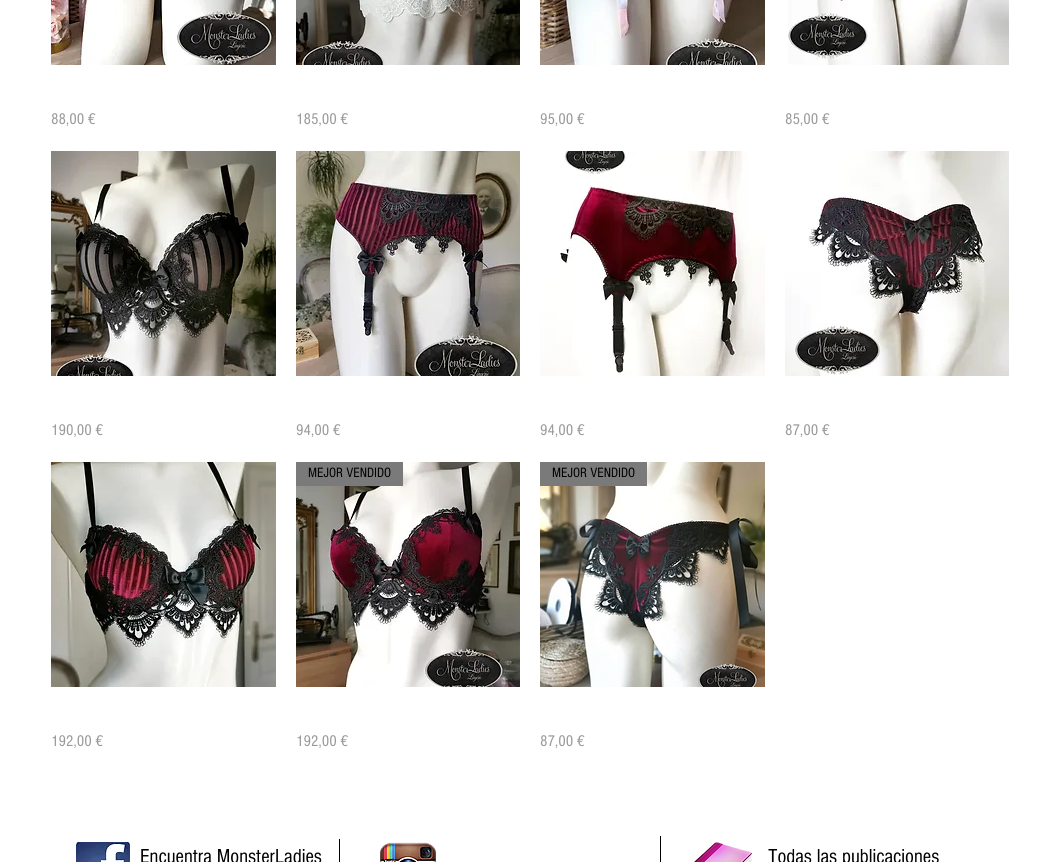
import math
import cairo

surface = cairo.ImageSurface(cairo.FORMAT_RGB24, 1060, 862)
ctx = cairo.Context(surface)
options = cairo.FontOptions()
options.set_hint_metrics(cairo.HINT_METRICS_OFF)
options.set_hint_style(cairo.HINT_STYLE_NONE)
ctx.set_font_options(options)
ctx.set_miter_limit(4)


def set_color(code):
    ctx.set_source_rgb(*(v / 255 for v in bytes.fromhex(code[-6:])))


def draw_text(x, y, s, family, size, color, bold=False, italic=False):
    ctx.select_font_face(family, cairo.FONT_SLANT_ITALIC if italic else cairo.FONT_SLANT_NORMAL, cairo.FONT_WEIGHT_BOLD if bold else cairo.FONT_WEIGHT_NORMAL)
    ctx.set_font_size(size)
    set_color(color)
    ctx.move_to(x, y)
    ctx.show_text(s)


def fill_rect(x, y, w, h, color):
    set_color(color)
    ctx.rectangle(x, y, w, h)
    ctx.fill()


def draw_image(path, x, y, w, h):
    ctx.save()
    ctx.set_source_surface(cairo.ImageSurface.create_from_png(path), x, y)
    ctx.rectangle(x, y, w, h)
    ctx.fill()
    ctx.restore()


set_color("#ffffff")
ctx.paint()
draw_image("assets/img1.png", 51, 0, 225, 65)
draw_text(51, 124, "88,00 €", "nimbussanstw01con", 16, "#999999")
draw_image("assets/img2.png", 296, 0, 224, 65)
draw_text(296, 124, "185,00 €", "nimbussanstw01con", 16, "#999999")
draw_image("assets/img3.png", 540, 0, 225, 65)
draw_text(540, 124, "95,00 €", "nimbussanstw01con", 16, "#999999")
draw_image("assets/img4.png", 788, 0, 221, 65)
draw_text(785, 124, "85,00 €", "nimbussanstw01con", 16, "#999999")
draw_image("assets/img5.png", 51, 151, 225, 225)
draw_text(51, 435, "190,00 €", "nimbussanstw01con", 16, "#999999")
draw_image("assets/img6.png", 296, 151, 224, 225)
draw_text(296, 435, "94,00 €", "nimbussanstw01con", 16, "#999999")
draw_image("assets/img7.png", 540, 151, 225, 225)
draw_text(540, 435, "94,00 €", "nimbussanstw01con", 16, "#999999")
draw_image("assets/img8.png", 785, 151, 224, 225)
draw_text(785, 435, "87,00 €", "nimbussanstw01con", 16, "#999999")
draw_image("assets/img9.png", 51, 462, 225, 225)
draw_text(51, 746, "192,00 €", "nimbussanstw01con", 16, "#999999")
draw_image("assets/img10.png", 296, 462, 224, 225)
fill_rect(296, 462, 107, 24, "#7a7a7a")
draw_text(308, 477, "MEJOR VENDIDO", "nimbussanstw01con", 14, "#000000")
draw_text(296, 746, "192,00 €", "nimbussanstw01con", 16, "#999999")
draw_image("assets/img11.png", 540, 462, 225, 225)
fill_rect(540, 462, 107, 24, "#7a7a7a")
draw_text(552, 477, "MEJOR VENDIDO", "nimbussanstw01con", 14, "#000000")
draw_text(540, 746, "87,00 €", "nimbussanstw01con", 16, "#999999")
draw_image("assets/img12.png", 76, 842, 54, 20)
draw_text(140, 863, "Encuentra MonsterLadies", "nimbussanstw01con", 21, "#000000")
fill_rect(339, 839, 1, 23, "#000000")
draw_image("assets/img13.png", 380, 842, 56, 20)
fill_rect(660, 836, 1, 26, "#000000")
draw_image("assets/img14.png", 694, 842, 58, 20)
draw_text(768, 863, "Todas las publicaciones", "nimbussanstw01con", 21, "#000000")
surface.write_to_png("output.png")
